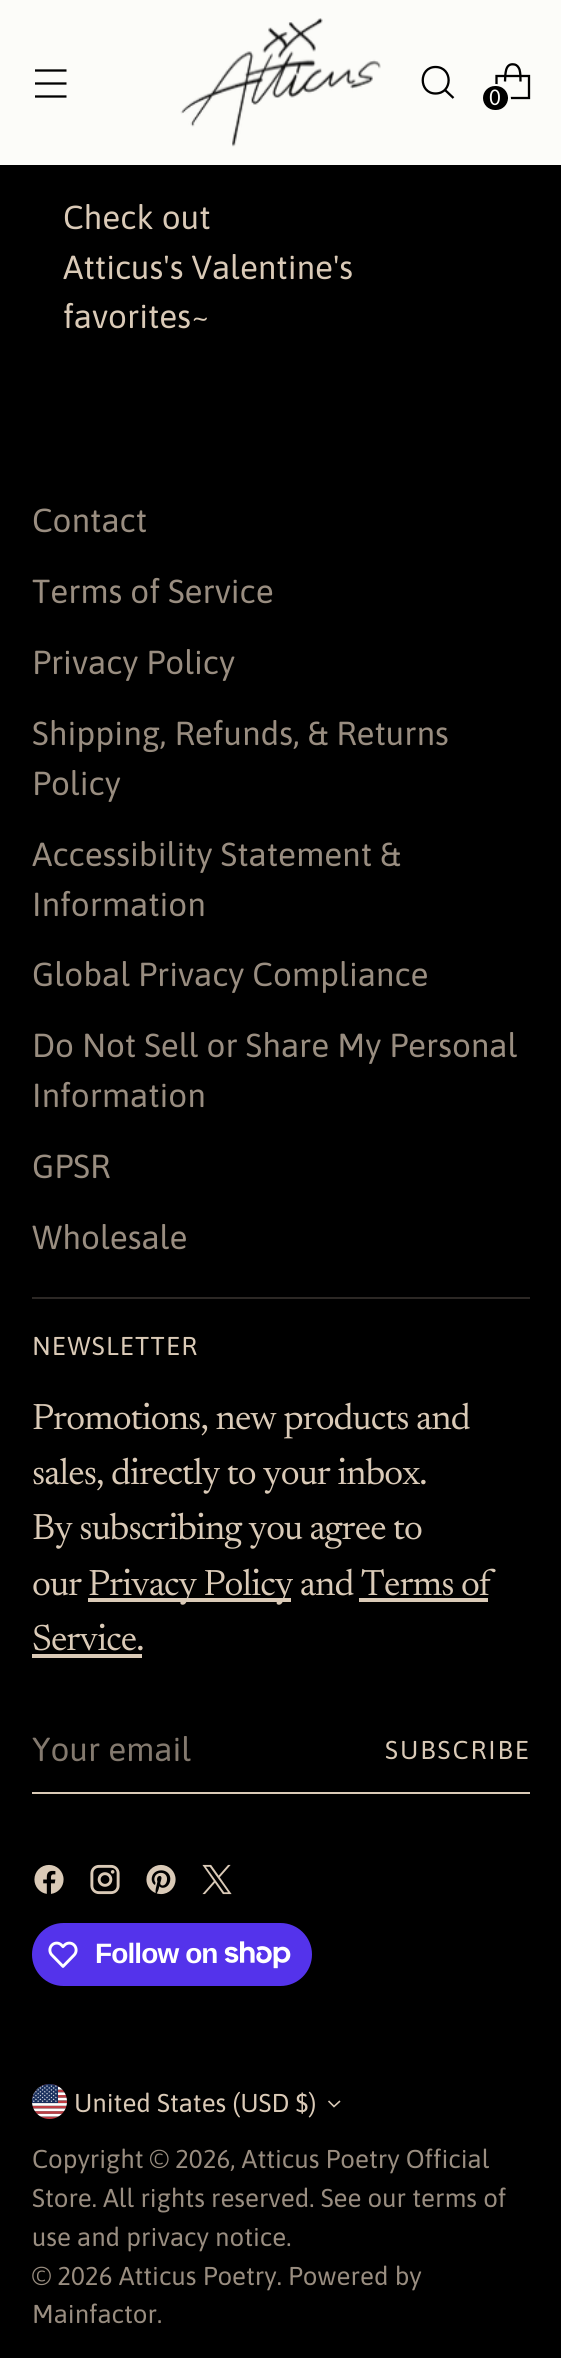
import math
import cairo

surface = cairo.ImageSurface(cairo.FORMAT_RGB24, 561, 2358)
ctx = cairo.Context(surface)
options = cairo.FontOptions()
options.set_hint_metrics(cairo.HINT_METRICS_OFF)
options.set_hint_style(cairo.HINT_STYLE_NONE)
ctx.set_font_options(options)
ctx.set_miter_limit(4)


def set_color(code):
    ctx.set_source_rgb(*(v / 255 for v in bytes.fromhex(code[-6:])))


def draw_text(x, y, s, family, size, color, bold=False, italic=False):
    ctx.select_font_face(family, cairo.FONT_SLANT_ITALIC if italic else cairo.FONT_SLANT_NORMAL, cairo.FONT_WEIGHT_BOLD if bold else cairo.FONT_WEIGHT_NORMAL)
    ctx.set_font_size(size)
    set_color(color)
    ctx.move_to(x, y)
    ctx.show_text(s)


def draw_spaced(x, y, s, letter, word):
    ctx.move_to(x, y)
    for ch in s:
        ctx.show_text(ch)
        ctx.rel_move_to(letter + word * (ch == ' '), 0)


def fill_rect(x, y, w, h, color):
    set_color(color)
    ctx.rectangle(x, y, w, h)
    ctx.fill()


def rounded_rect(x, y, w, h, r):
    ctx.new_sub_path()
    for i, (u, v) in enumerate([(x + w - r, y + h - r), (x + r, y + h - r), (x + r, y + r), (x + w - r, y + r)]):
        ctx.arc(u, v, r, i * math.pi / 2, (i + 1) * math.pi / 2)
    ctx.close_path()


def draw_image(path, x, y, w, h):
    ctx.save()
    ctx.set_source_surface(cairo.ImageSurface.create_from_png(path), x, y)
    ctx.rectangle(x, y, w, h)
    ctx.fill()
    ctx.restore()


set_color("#000000")
ctx.paint()
fill_rect(0, 0, 561, 165, "#fcfcf9")
ctx.new_path()
ctx.move_to(35, 83.5)
ctx.line_to(66.5, 83.5)
ctx.move_to(35, 70.5)
ctx.line_to(66.5, 70.5)
ctx.move_to(35, 96.5)
ctx.line_to(66.5, 96.5)
set_color("#000000")
ctx.set_line_width(2.3)
ctx.stroke()
draw_image("assets/img1.png", 180, 18, 201, 129)
ctx.new_path()
ctx.move_to(435.5, 93.5)
ctx.curve_to(453, 93.5, 453, 67, 435.5, 67)
ctx.curve_to(418.5, 67, 418.5, 93.5, 435.5, 93.5)
ctx.close_path()
ctx.set_line_cap(cairo.LINE_CAP_ROUND)
ctx.stroke()
ctx.new_path()
ctx.move_to(445, 90)
ctx.line_to(453.5, 98)
ctx.set_line_cap(cairo.LINE_CAP_BUTT)
ctx.stroke()
ctx.new_path()
ctx.move_to(520.5, 81.5)
ctx.curve_to(520.5, 77.5, 520.5, 73, 519.5, 69.5)
ctx.curve_to(518.5, 67, 517, 65, 514.5, 64.5)
ctx.curve_to(504.5, 62.5, 505.5, 75, 505, 81.5)
ctx.set_line_join(cairo.LINE_JOIN_BEVEL)
ctx.stroke()
ctx.new_path()
ctx.move_to(529, 98)
ctx.line_to(529, 76)
ctx.line_to(496.5, 76)
ctx.line_to(496.5, 98)
ctx.close_path()
ctx.set_line_join(cairo.LINE_JOIN_MITER)
ctx.stroke()
ctx.arc(496, 99, 13.5, 0, 2 * math.pi)
set_color("#fcfcf9")
ctx.set_line_width(3)
ctx.stroke()
set_color("#000000")
rounded_rect(483, 86, 25, 24, 12)
ctx.fill()
draw_text(489, 105, "0", "Asap", 22, "#fcfcf9")
draw_text(63, 229, "Check out", "Asap", 33.25, "#dacab7")
draw_text(63, 279, "Atticus's Valentine's", "Asap", 33.25, "#dacab7")
draw_text(63, 328, "favorites~", "Asap", 33.25, "#dacab7")
fill_rect(32, 1297, 498, 2, "#2c2825")
draw_text(32, 532, "Contact", "Asap", 33.25, "#998d80")
draw_text(32, 603, "Terms of Service", "Asap", 33.25, "#998d80")
draw_text(32, 674, "Privacy Policy", "Asap", 33.25, "#998d80")
draw_text(32, 745, "Shipping, Refunds, & Returns", "Asap", 33.25, "#998d80")
draw_text(32, 795, "Policy", "Asap", 33.25, "#998d80")
draw_text(32, 866, "Accessibility Statement &", "Asap", 33.25, "#998d80")
draw_text(32, 916, "Information", "Asap", 33.25, "#998d80")
draw_text(32, 986, "Global Privacy Compliance", "Asap", 33.25, "#998d80")
draw_text(32, 1057, "Do Not Sell or Share My Personal", "Asap", 33.25, "#998d80")
draw_text(32, 1107, "Information", "Asap", 33.25, "#998d80")
draw_text(32, 1178, "GPSR", "Asap", 33.25, "#998d80")
draw_text(32, 1249, "Wholesale", "Asap", 33.25, "#998d80")
ctx.set_font_size(25.8)
set_color("#dacab7")
draw_spaced(32, 1355, "NEWSLETTER", 1.25, 0)
ctx.select_font_face("Newsreader")
ctx.set_font_size(37)
draw_spaced(32, 1429, "Promotions, new products and", -0.9, 0)
draw_spaced(32, 1484, "sales, directly to your inbox.", -0.9, 0)
draw_spaced(32, 1539, "By subscribing you agree to", -0.9, 0)
draw_spaced(32, 1595, "our", -0.9, 0)
fill_rect(88, 1598, 203, 4, "#dacab7")
draw_spaced(88, 1595, "Privacy Policy and Terms of", -0.9, 0)
draw_spaced(32, 1650, "Service.", -0.9, 0)
fill_rect(359, 1598, 129, 4, "#dacab7")
fill_rect(32, 1654, 110, 4, "#dacab7")
fill_rect(32, 1792, 498, 2, "#dacab7")
draw_text(32, 1761, "Your email", "Asap", 33.25, "#83796e")
ctx.set_font_size(25.8)
set_color("#dacab7")
draw_spaced(385, 1759, "SUBSCRIBE", 2, 0)
draw_image("assets/img2.png", 34, 1864, 30, 30)
draw_image("assets/img3.png", 90, 1864, 30, 31)
draw_image("assets/img4.png", 146, 1864, 30, 31)
draw_image("assets/img5.png", 202, 1864, 30, 31)
set_color("#5433eb")
rounded_rect(32, 1923, 280, 63, 31.5)
ctx.fill()
draw_image("assets/img6.png", 48, 1941, 30, 27)
ctx.select_font_face("Liberation Sans", cairo.FONT_SLANT_NORMAL, cairo.FONT_WEIGHT_BOLD)
ctx.set_font_size(28)
set_color("#ffffff")
draw_spaced(95, 1963, "Follow on", -0.9, 0)
draw_image("assets/img7.png", 224, 1941, 67, 28)
draw_image("assets/img8.png", 32, 2084, 35, 35)
draw_text(74, 2112, "United States (USD $)", "Asap", 25.8, "#dacab7")
ctx.new_path()
ctx.move_to(328.5, 2101)
ctx.line_to(334, 2106.5)
ctx.line_to(340, 2101)
ctx.set_line_width(1.6)
ctx.stroke()
draw_text(32, 2168, "Copyright © 2026, Atticus Poetry Official", "Asap", 25.8, "#998d80")
draw_text(32, 2207, "Store. All rights reserved. See our terms of", "Asap", 25.8, "#998d80")
draw_text(32, 2246, "use and privacy notice.", "Asap", 25.8, "#998d80")
draw_text(32, 2285, "© 2026 Atticus Poetry. Powered by", "Asap", 25.8, "#998d80")
draw_text(32, 2323, "Mainfactor.", "Asap", 25.8, "#998d80")
surface.write_to_png("output.png")
